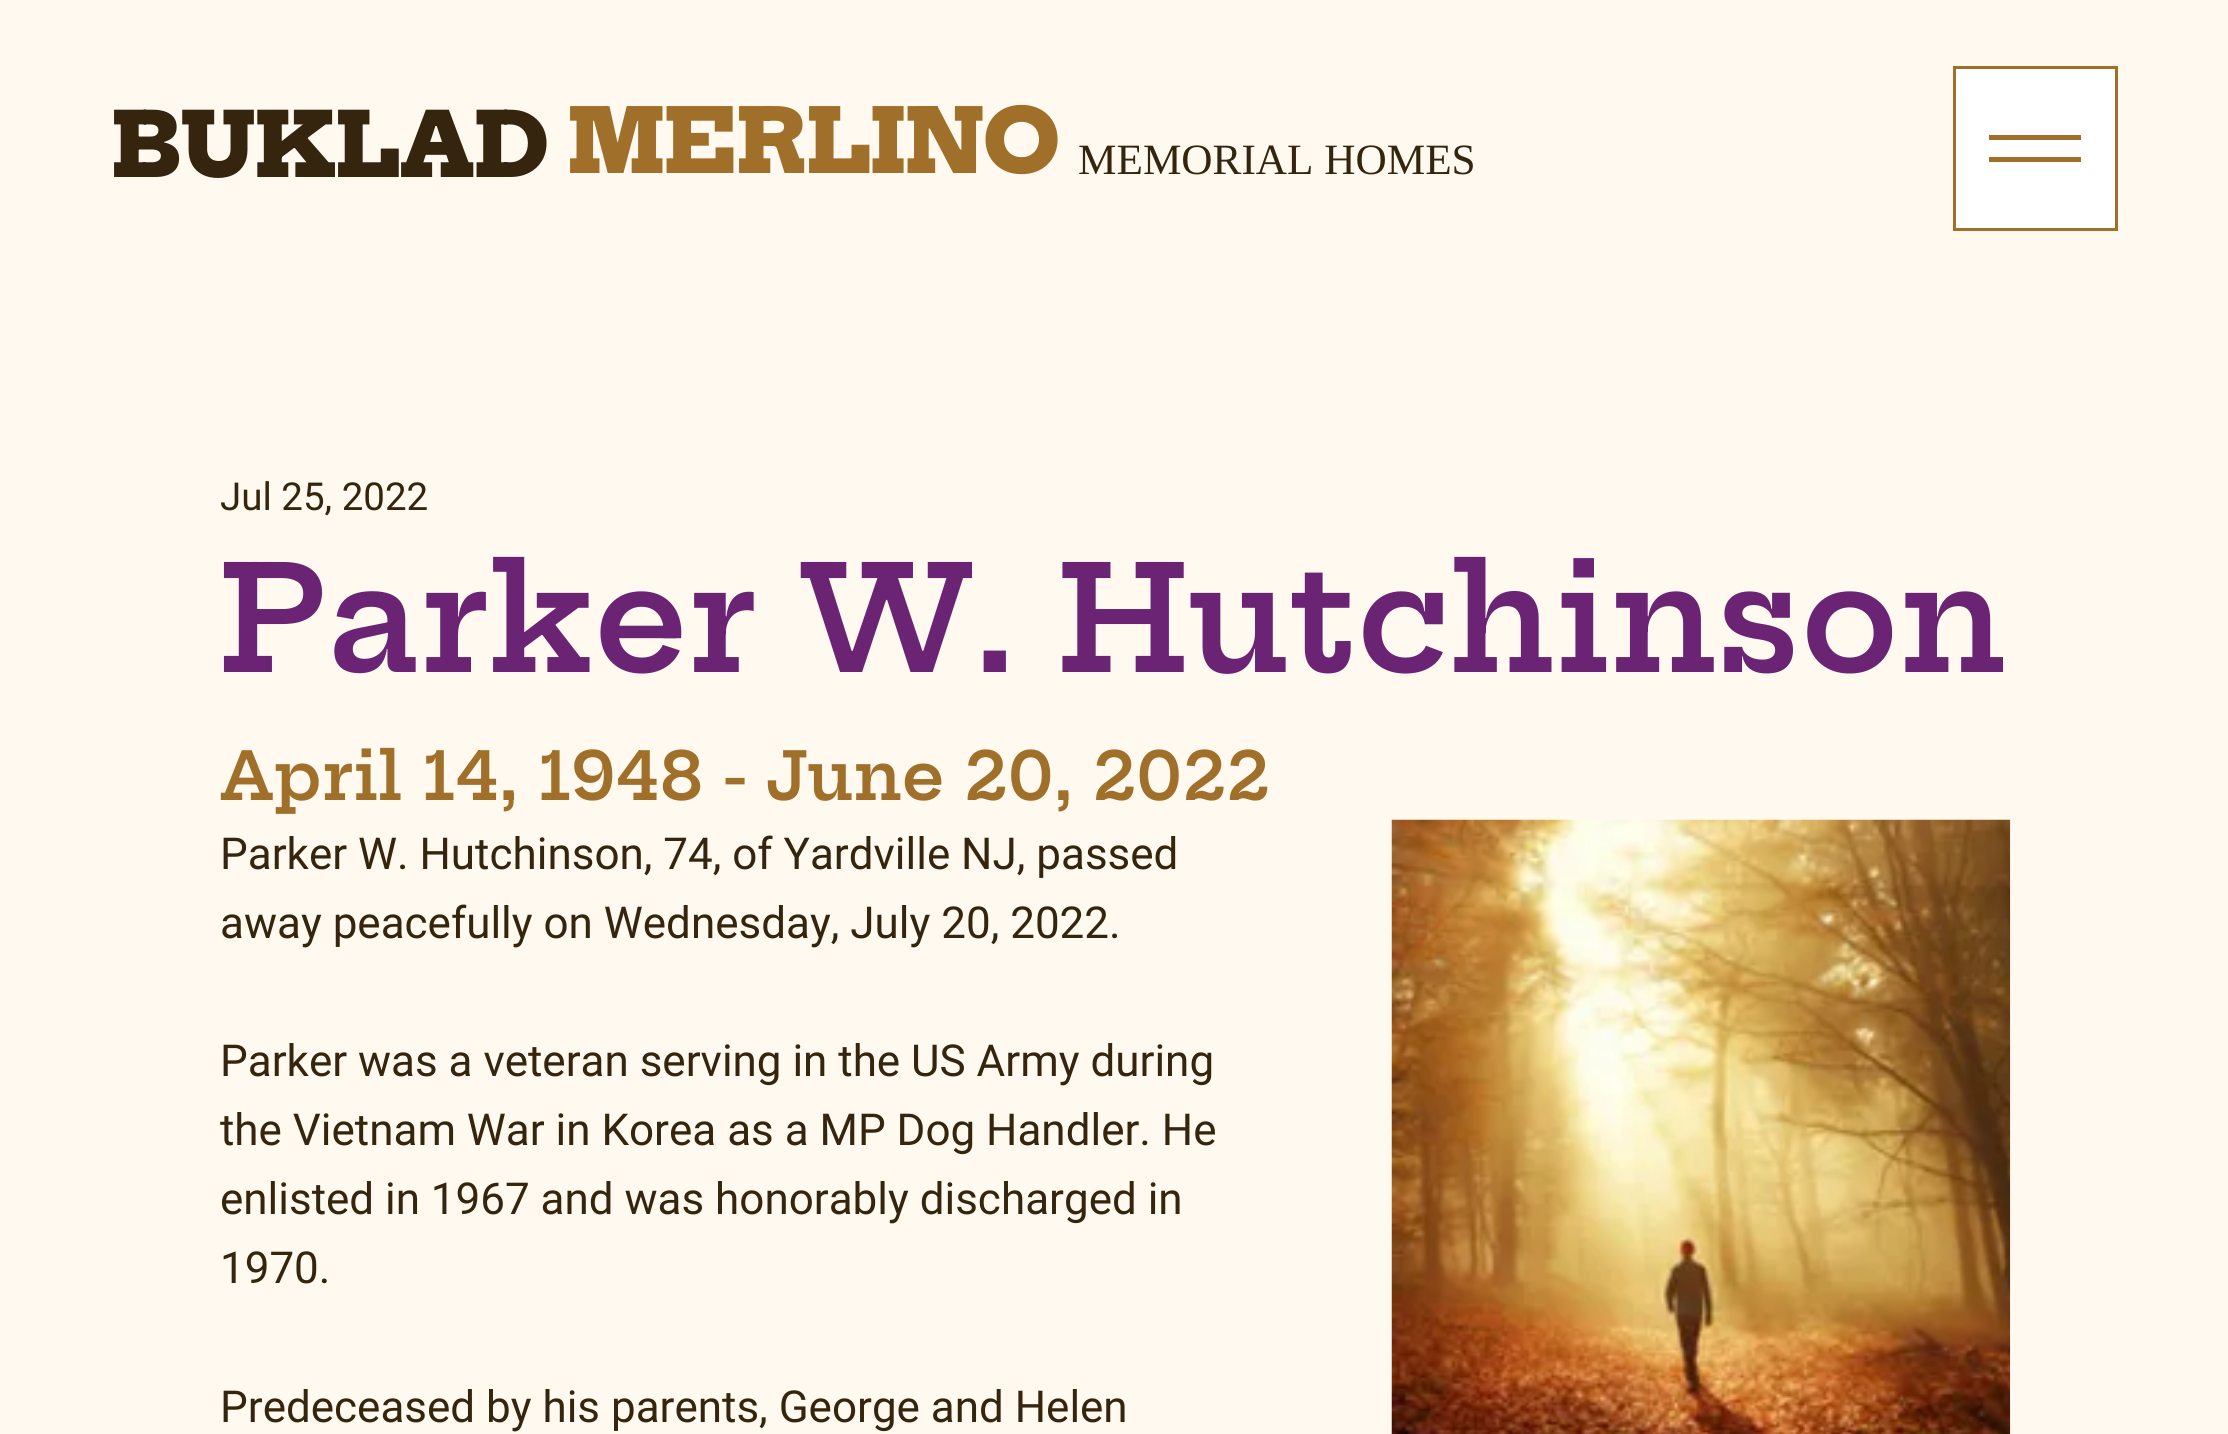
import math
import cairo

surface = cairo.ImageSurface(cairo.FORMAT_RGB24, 2228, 1434)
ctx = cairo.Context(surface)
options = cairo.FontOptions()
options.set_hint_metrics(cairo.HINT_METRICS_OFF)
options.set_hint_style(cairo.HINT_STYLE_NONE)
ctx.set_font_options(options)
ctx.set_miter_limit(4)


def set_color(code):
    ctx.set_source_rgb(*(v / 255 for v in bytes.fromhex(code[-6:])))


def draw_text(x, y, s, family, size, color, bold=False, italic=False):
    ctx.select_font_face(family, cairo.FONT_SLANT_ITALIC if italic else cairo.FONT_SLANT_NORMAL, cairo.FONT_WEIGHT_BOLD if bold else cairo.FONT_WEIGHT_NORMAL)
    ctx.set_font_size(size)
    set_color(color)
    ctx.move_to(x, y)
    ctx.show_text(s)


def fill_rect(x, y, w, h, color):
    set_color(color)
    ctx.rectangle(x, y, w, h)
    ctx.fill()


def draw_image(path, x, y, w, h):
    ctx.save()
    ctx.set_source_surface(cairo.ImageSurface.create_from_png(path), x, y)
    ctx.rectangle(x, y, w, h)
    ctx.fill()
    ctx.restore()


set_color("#fff9ef")
ctx.paint()
draw_text(112, 177, "BUKLAD", "Hepta Slab ExtraBold", 88, "#35250e")
draw_text(568, 173, "MERLINO", "Hepta Slab ExtraBold", 87.5, "#a0702b")
draw_text(1078, 174, "MEMORIAL HOMES", "Liberation Serif", 43.25, "#35250e")
set_color("#ffffff")
ctx.rectangle(1954.5, 67.5, 162, 162)
ctx.fill_preserve()
set_color("#a0702b")
ctx.set_line_width(3)
ctx.stroke()
fill_rect(1989, 135, 92, 5, "#a0702b")
fill_rect(1989, 157, 92, 5, "#a0702b")
draw_text(220, 510, "Jul 25, 2022", "Roboto", 38.5, "#35250e")
draw_text(220, 672, "Parker W. Hutchinson", "Hepta Slab SemiBold", 145.75, "#6a2473")
draw_text(220, 800, "April 14, 1948 - June 20, 2022", "Hepta Slab SemiBold", 66, "#a0702b")
draw_text(220, 869, "Parker W. Hutchinson, 74, of Yardville NJ, passed", "Roboto", 44, "#35250e")
draw_text(220, 938, "away peacefully on Wednesday, July 20, 2022.", "Roboto", 44, "#35250e")
draw_image("assets/img1.png", 1391, 819, 620, 615)
draw_text(220, 1076, "Parker was a veteran serving in the US Army during", "Roboto", 44, "#35250e")
draw_text(220, 1145, "the Vietnam War in Korea as a MP Dog Handler. He", "Roboto", 44, "#35250e")
draw_text(220, 1214, "enlisted in 1967 and was honorably discharged in", "Roboto", 44, "#35250e")
draw_text(220, 1283, "1970.", "Roboto", 44, "#35250e")
draw_text(220, 1422, "Predeceased by his parents, George and Helen", "Roboto", 44, "#35250e")
surface.write_to_png("output.png")
